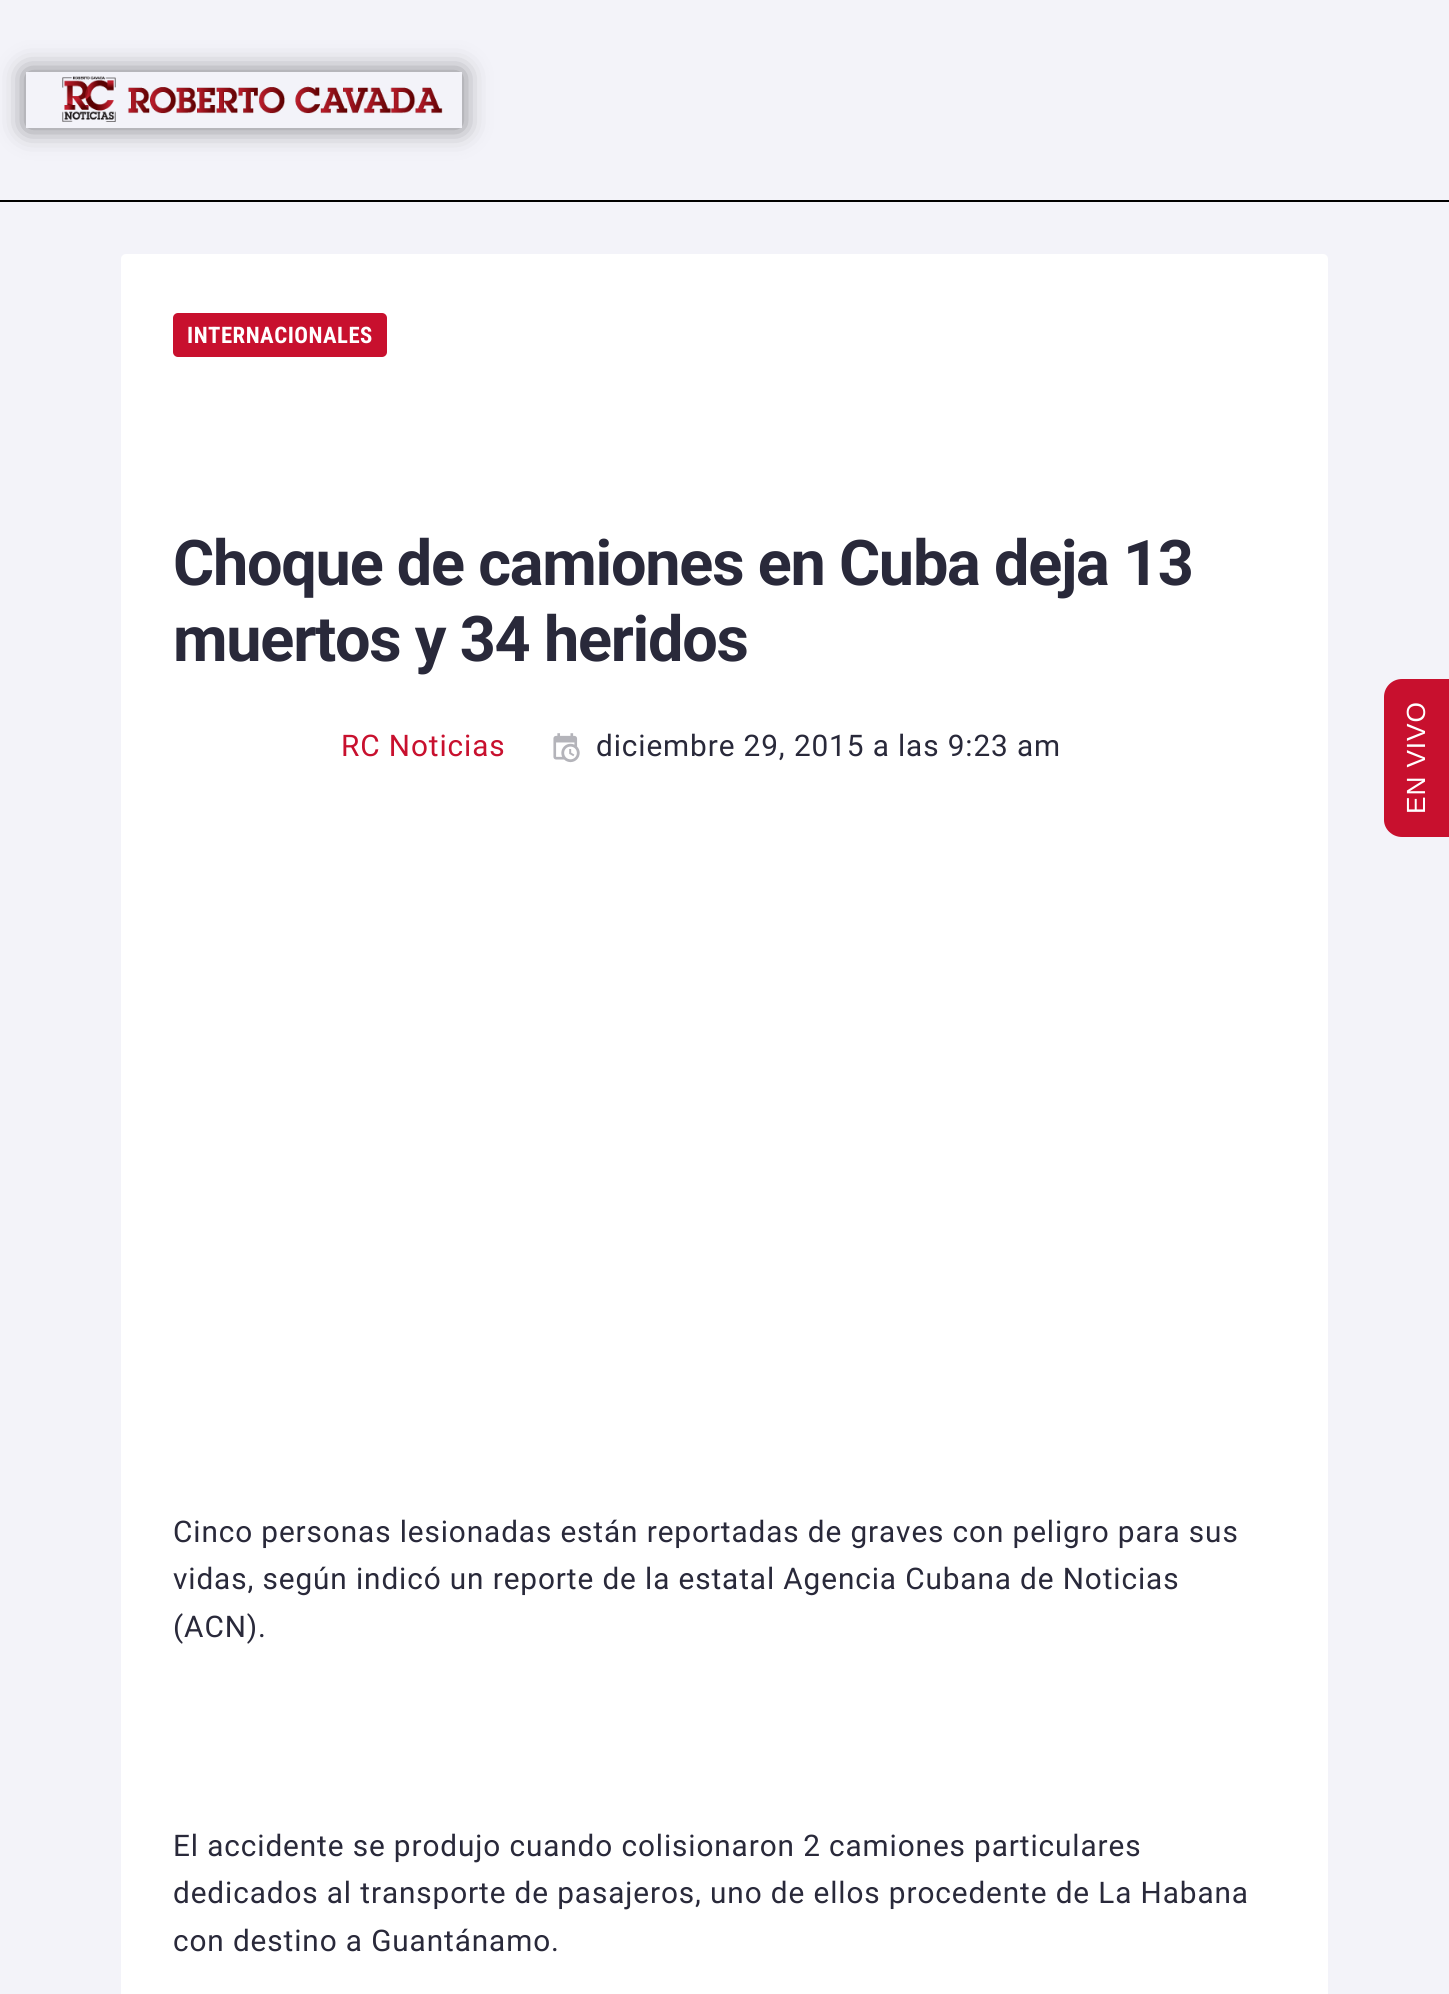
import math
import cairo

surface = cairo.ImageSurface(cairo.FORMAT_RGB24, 1449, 1994)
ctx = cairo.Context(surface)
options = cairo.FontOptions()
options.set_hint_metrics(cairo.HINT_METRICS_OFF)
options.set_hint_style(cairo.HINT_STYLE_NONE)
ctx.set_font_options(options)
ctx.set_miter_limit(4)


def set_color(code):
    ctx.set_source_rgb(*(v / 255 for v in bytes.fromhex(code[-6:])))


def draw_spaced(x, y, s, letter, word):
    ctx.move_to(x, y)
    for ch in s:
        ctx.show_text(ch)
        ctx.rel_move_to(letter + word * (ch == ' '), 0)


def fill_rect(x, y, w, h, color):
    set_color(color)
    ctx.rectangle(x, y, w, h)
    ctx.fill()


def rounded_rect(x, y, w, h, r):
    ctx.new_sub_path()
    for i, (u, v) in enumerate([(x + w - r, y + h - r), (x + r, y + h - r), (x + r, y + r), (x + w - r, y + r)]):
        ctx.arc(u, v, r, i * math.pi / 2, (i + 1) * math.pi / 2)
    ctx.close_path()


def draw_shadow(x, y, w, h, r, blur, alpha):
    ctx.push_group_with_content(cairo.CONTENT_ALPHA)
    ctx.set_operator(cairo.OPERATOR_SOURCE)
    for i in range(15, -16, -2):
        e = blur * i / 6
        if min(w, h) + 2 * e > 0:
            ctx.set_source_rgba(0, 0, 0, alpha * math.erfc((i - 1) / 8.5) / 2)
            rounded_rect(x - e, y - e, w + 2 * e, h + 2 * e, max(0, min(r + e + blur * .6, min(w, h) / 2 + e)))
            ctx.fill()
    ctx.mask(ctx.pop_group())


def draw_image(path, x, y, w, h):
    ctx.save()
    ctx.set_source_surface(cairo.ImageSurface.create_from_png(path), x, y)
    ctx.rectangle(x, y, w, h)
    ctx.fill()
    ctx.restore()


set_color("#f3f3f9")
ctx.paint()
set_color("#000000")
draw_shadow(26, 72, 436, 56, 0, 13, 0.5)
fill_rect(26, 72, 436, 56, "#f3f3f9")
draw_image("assets/img1.png", 62, 76, 381, 46)
fill_rect(0, 200, 1449, 2, "#000000")
set_color("#ffffff")
rounded_rect(121, 254, 1207, 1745, 5)
ctx.fill()
set_color("#c8102e")
rounded_rect(173, 313, 214, 44, 5)
ctx.fill()
ctx.select_font_face("Roboto Condensed", cairo.FONT_SLANT_NORMAL, cairo.FONT_WEIGHT_BOLD)
ctx.set_font_size(22.75)
set_color("#ffffff")
draw_spaced(187, 343, "INTERNACIONALES", 0.5, 0)
ctx.select_font_face("Roboto", cairo.FONT_SLANT_NORMAL, cairo.FONT_WEIGHT_BOLD)
ctx.set_font_size(63)
set_color("#29293a")
draw_spaced(173, 585, "Choque de camiones en Cuba deja 13", -1.25, 0)
draw_spaced(173, 661, "muertos y 34 heridos", -1.25, 0)
ctx.select_font_face("Roboto")
ctx.set_font_size(29.75)
set_color("#c8102e")
draw_spaced(341, 756, "RC Noticias", 0.9, 0)
draw_image("assets/img2.png", 553, 733, 27, 30)
set_color("#29293a")
draw_spaced(596, 756, "diciembre 29, 2015 a las 9:23 am", 0.9, 0)
draw_spaced(173, 1542, "Cinco personas lesionadas están reportadas de graves con peligro para sus", 0.9, 0)
draw_spaced(173, 1589, "vidas, según indicó un reporte de la estatal Agencia Cubana de Noticias", 0.9, 0)
draw_spaced(173, 1637, "(ACN).", 0.9, 0)
draw_spaced(173, 1856, "El accidente se produjo cuando colisionaron 2 camiones particulares", 0.9, 0)
draw_spaced(173, 1903, "dedicados al transporte de pasajeros, uno de ellos procedente de La Habana", 0.9, 0)
draw_spaced(173, 1951, "con destino a Guantánamo.", 0.9, 0)
set_color("#c8102e")
ctx.new_path()
ctx.move_to(1384, 820)
ctx.line_to(1384, 697)
ctx.curve_to(1384, 687, 1392, 679, 1402, 679)
ctx.line_to(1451, 679)
ctx.line_to(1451, 837)
ctx.line_to(1402, 837)
ctx.curve_to(1392, 837, 1384, 829, 1384, 820)
ctx.close_path()
ctx.fill()
ctx.select_font_face("Liberation Sans")
ctx.set_font_size(26.25)
set_color("#ffffff")
ctx.save()
ctx.translate(1425, 814)
ctx.rotate(-90 * math.pi / 180)
draw_spaced(0, 0, "EN VIVO", 0.9, 0)
ctx.restore()
surface.write_to_png("output.png")
